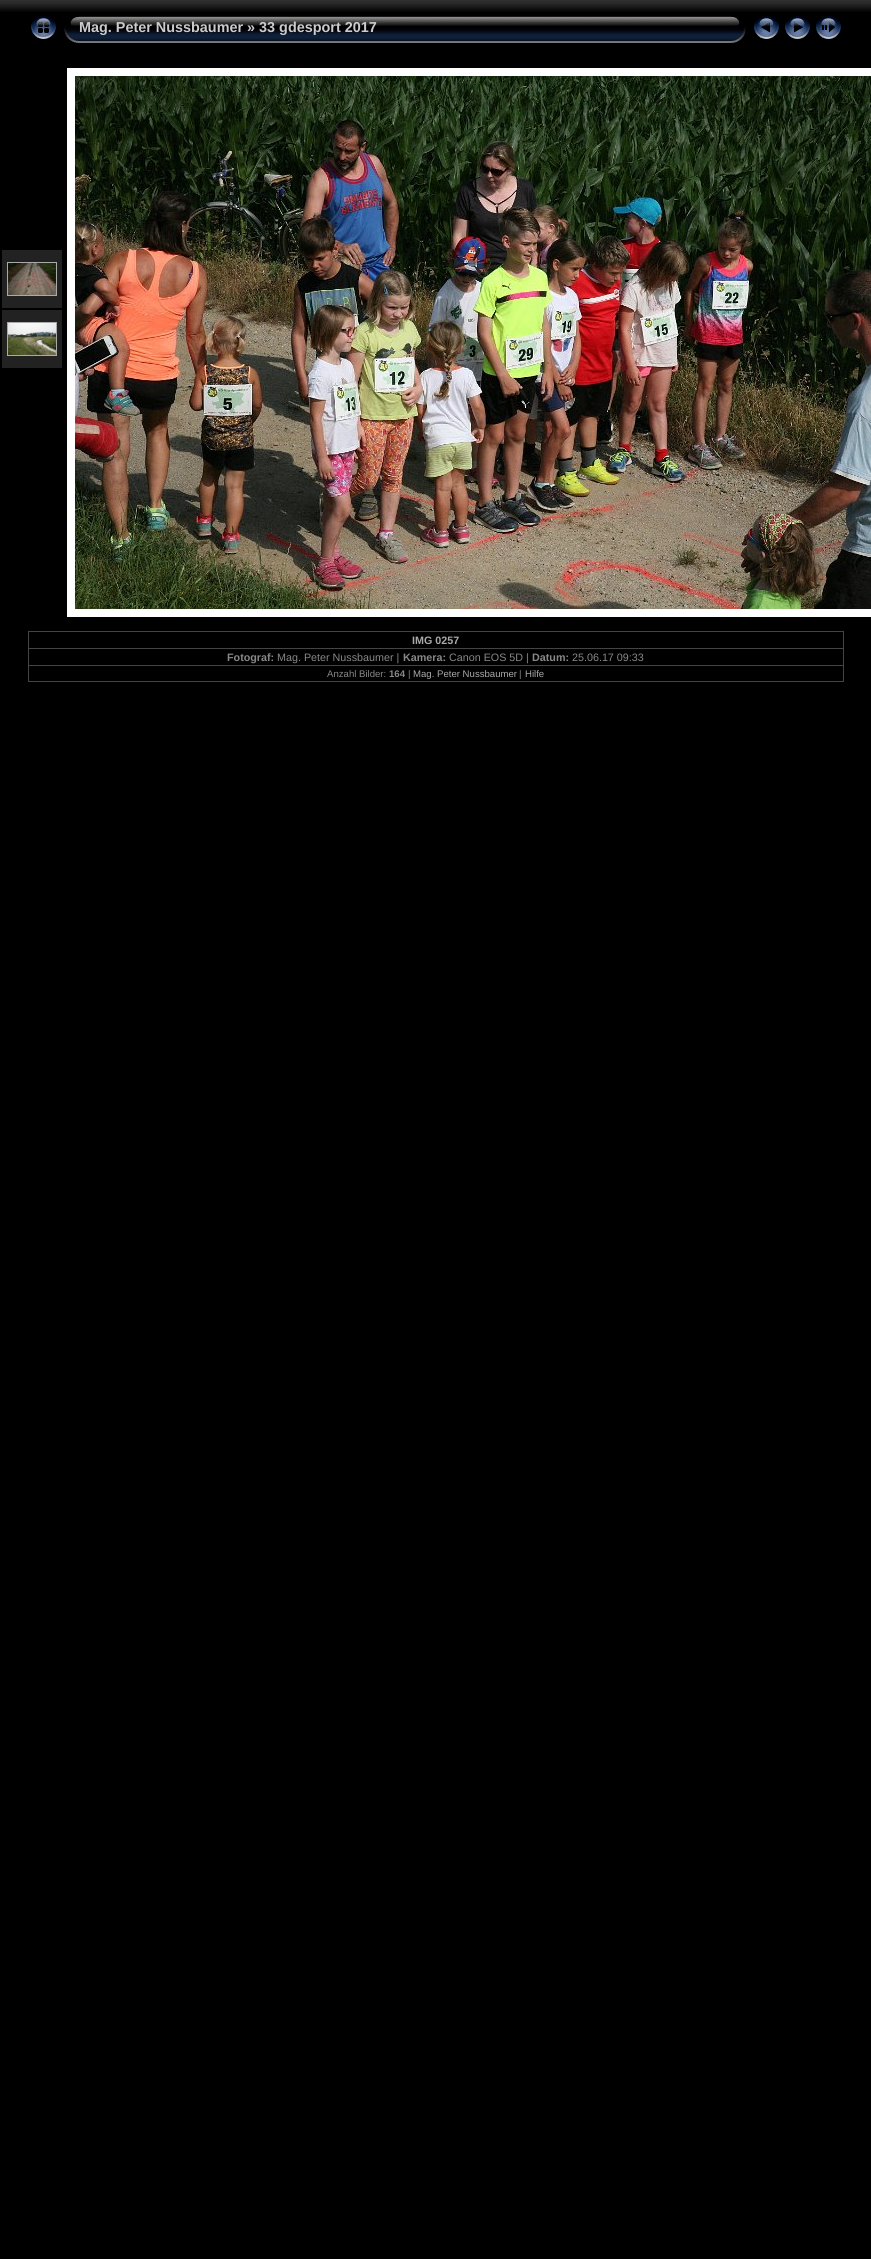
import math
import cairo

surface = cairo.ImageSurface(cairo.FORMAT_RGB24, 871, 2259)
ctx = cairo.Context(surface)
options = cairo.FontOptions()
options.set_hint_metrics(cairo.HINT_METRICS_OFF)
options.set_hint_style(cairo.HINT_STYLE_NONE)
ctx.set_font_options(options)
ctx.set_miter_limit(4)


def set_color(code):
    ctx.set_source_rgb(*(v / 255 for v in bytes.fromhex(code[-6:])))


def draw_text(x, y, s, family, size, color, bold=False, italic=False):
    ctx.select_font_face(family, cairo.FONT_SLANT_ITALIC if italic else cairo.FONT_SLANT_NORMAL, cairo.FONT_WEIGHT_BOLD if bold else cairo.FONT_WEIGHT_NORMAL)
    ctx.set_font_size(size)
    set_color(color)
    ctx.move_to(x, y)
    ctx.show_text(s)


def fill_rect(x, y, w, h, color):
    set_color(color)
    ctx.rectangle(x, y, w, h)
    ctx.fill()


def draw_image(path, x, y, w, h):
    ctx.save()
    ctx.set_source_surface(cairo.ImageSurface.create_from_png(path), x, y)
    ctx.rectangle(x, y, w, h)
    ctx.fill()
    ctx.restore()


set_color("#000000")
ctx.paint()
draw_image("assets/img1.png", 0, 0, 871, 12)
draw_image("assets/img2.png", 31, 16, 25, 23)
draw_image("assets/img3.png", 64, 16, 15, 27)
draw_image("assets/img4.png", 79, 16, 652, 27)
draw_text(79, 32, "Mag. Peter Nussbaumer » 33 gdesport 2017", "Liberation Sans", 14.4, "#cccccc", bold=True)
draw_image("assets/img5.png", 731, 16, 15, 27)
draw_image("assets/img6.png", 754, 16, 25, 23)
draw_image("assets/img7.png", 785, 16, 25, 23)
draw_image("assets/img8.png", 816, 16, 25, 23)
fill_rect(2, 250, 60, 58, "#222222")
ctx.rectangle(7.5, 262.5, 49, 33)
set_color("#aaaaaa")
ctx.set_line_width(1)
ctx.stroke()
draw_image("assets/img9.png", 8, 263, 48, 32)
fill_rect(2, 310, 60, 58, "#222222")
ctx.rectangle(7.5, 322.5, 49, 33)
set_color("#aaaaaa")
ctx.stroke()
draw_image("assets/img10.png", 8, 323, 48, 32)
ctx.rectangle(71, 72, 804, 541)
set_color("#ffffff")
ctx.set_line_width(8)
ctx.stroke()
draw_image("assets/img11.png", 75, 76, 796, 533)
fill_rect(28, 631, 816, 1, "#444444")
fill_rect(843, 631, 1, 51, "#444444")
fill_rect(28, 681, 816, 1, "#444444")
fill_rect(28, 631, 1, 51, "#444444")
draw_text(412, 644, "IMG 0257", "Liberation Sans", 10.75, "#aaaaaa", bold=True)
fill_rect(28, 648, 816, 1, "#444444")
draw_text(227, 661, "Fotograf:", "Liberation Sans", 10.75, "#888888", bold=True)
draw_text(277, 661, "Mag. Peter Nussbaumer |", "Liberation Sans", 10.75, "#888888")
draw_text(403, 661, "Kamera:", "Liberation Sans", 10.75, "#888888", bold=True)
draw_text(449, 661, "Canon EOS 5D |", "Liberation Sans", 10.75, "#888888")
draw_text(532, 661, "Datum:", "Liberation Sans", 10.75, "#888888", bold=True)
draw_text(572, 661, "25.06.17 09:33", "Liberation Sans", 10.75, "#888888")
fill_rect(28, 665, 816, 1, "#444444")
draw_text(327, 677, "Anzahl Bilder:", "Liberation Sans", 9.6, "#888888")
draw_text(389, 677, "164", "Liberation Sans", 9.6, "#888888", bold=True)
draw_text(408, 677, "|", "Liberation Sans", 9.6, "#888888")
draw_text(413, 677, "Mag. Peter Nussbaumer", "Liberation Sans", 9.6, "#aaaaaa")
draw_text(519, 677, "|", "Liberation Sans", 9.6, "#888888")
draw_text(525, 677, "Hilfe", "Liberation Sans", 9.6, "#aaaaaa")
surface.write_to_png("output.png")
